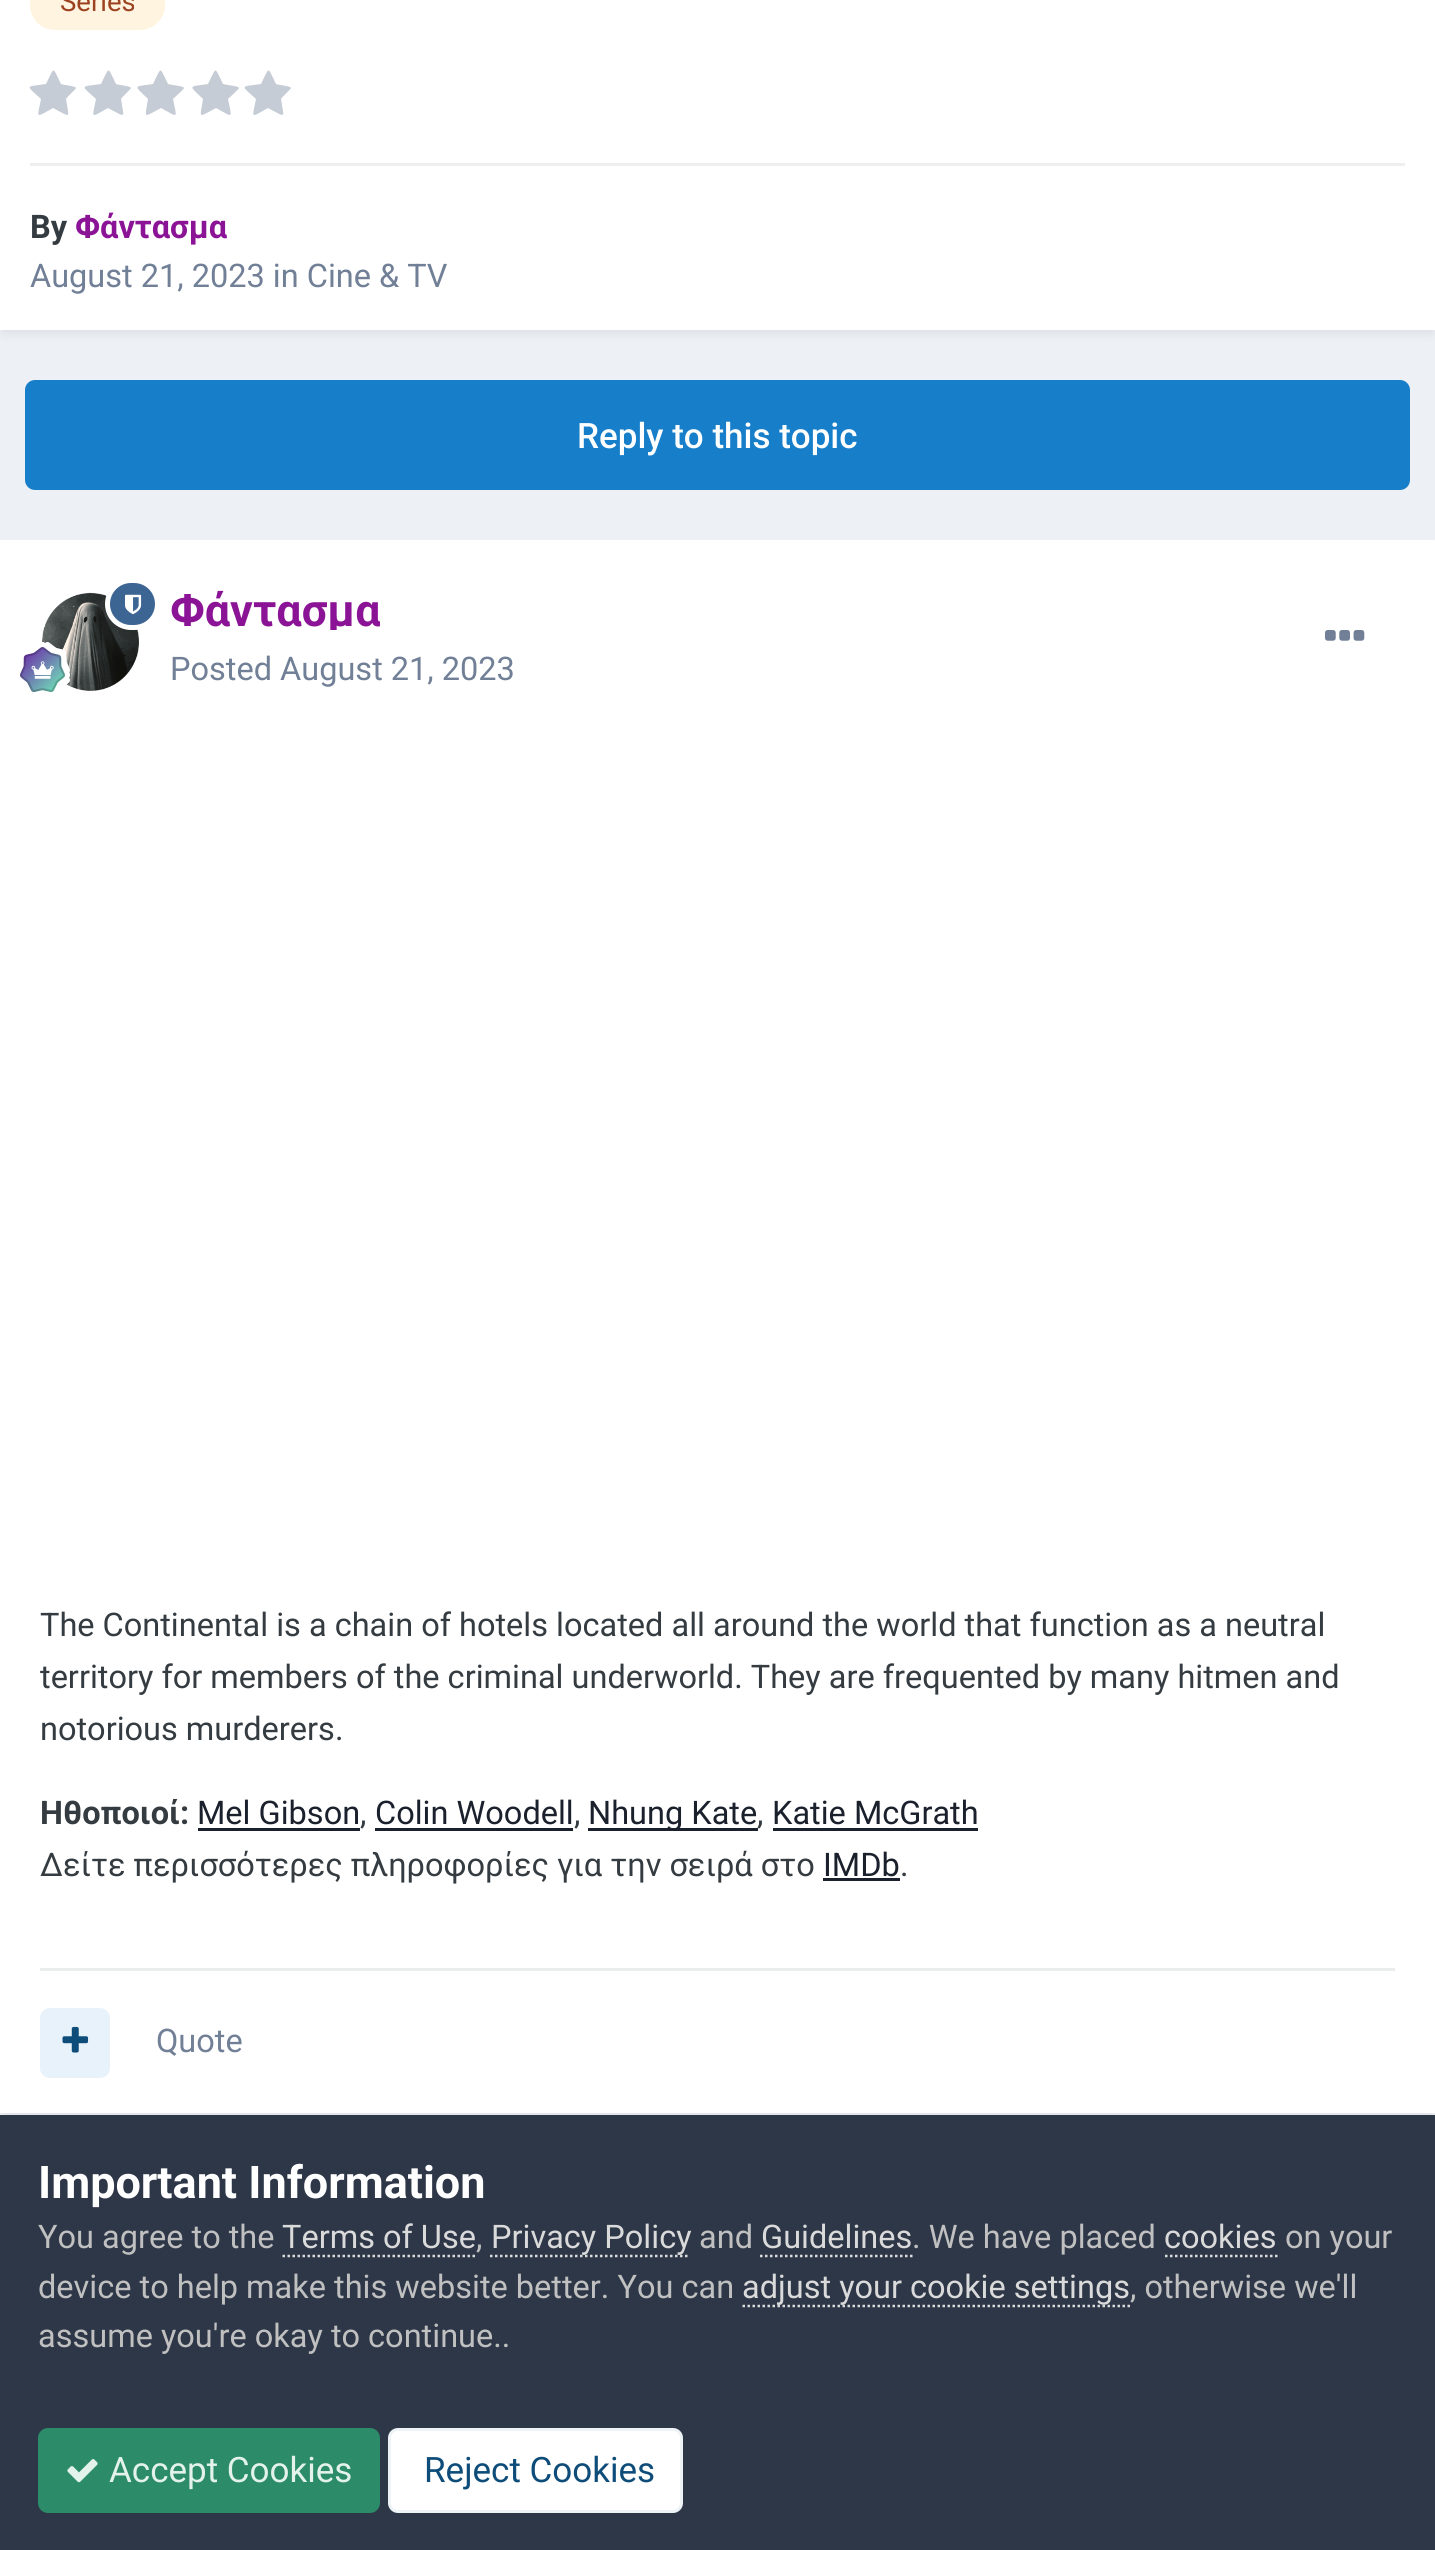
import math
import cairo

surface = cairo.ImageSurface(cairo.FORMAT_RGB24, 1435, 2550)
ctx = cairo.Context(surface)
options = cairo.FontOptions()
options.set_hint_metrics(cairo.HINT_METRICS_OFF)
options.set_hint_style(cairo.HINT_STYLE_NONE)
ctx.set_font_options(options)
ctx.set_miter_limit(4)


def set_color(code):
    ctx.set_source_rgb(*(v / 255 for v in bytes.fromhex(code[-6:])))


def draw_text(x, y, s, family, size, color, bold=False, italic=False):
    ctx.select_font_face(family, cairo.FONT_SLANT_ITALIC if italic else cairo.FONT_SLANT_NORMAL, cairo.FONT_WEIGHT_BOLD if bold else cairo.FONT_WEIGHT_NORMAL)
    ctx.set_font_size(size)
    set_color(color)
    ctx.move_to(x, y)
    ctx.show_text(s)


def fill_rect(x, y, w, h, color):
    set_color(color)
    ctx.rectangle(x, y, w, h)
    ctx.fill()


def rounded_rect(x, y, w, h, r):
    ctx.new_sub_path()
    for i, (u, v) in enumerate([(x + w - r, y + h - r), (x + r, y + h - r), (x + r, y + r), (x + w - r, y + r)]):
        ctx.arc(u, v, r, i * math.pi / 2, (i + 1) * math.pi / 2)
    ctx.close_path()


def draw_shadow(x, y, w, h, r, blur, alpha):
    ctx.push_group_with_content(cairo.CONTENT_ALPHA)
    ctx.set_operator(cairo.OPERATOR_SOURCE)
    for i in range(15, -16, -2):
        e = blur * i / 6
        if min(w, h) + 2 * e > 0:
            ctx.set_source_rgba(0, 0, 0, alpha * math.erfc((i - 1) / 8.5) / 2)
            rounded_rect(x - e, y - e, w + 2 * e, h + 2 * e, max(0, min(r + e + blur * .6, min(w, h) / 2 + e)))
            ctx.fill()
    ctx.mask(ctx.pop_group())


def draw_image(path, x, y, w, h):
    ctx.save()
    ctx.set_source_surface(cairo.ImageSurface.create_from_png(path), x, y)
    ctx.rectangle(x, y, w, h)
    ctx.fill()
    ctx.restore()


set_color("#edf0f4")
ctx.paint()
set_color("#2d3748")
draw_shadow(3, -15, 1430, 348, 0, 5, 0.1)
fill_rect(0, 0, 1435, 330, "#ffffff")
set_color("#fff4df")
rounded_rect(30, -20, 135, 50, 25)
ctx.fill()
draw_text(60, 11, "Series", "Roboto", 27.5, "#9c4221")
set_color("#c6ccd5")
ctx.new_path()
ctx.move_to(76, 88)
ctx.curve_to(76, 89, 67, 97, 66, 99)
ctx.curve_to(69, 119, 72, 118, 53, 108)
ctx.curve_to(35, 118, 37, 119, 41, 99)
ctx.curve_to(26, 85, 24, 87, 46, 84)
ctx.curve_to(55, 66, 52, 66, 61, 84)
ctx.curve_to(63, 85, 76, 86, 76, 88)
ctx.close_path()
ctx.fill()
ctx.new_path()
ctx.move_to(131, 88)
ctx.curve_to(131, 89, 122, 97, 121, 99)
ctx.curve_to(124, 119, 127, 118, 108, 108)
ctx.curve_to(90, 118, 92, 119, 96, 99)
ctx.curve_to(81, 85, 79, 87, 101, 84)
ctx.curve_to(110, 66, 107, 66, 116, 84)
ctx.curve_to(118, 85, 131, 86, 131, 88)
ctx.close_path()
ctx.fill()
ctx.new_path()
ctx.move_to(184, 88)
ctx.curve_to(184, 89, 175, 97, 173, 99)
ctx.curve_to(177, 119, 179, 118, 161, 108)
ctx.curve_to(142, 118, 145, 119, 148, 99)
ctx.curve_to(134, 85, 132, 87, 153, 84)
ctx.curve_to(162, 66, 159, 66, 168, 84)
ctx.curve_to(171, 85, 184, 86, 184, 88)
ctx.close_path()
ctx.fill()
ctx.new_path()
ctx.move_to(239, 88)
ctx.curve_to(239, 89, 230, 97, 228, 99)
ctx.curve_to(232, 119, 234, 118, 216, 108)
ctx.curve_to(197, 118, 200, 119, 203, 99)
ctx.curve_to(189, 85, 187, 87, 208, 84)
ctx.curve_to(217, 66, 214, 66, 223, 84)
ctx.curve_to(226, 85, 239, 86, 239, 88)
ctx.close_path()
ctx.fill()
ctx.new_path()
ctx.move_to(291, 88)
ctx.curve_to(291, 89, 282, 97, 281, 99)
ctx.curve_to(284, 119, 287, 118, 268, 108)
ctx.curve_to(250, 118, 252, 119, 256, 99)
ctx.curve_to(241, 85, 239, 87, 261, 84)
ctx.curve_to(270, 66, 267, 66, 276, 84)
ctx.curve_to(278, 85, 291, 86, 291, 88)
ctx.close_path()
ctx.fill()
fill_rect(30, 163, 1375, 3, "#efeff0")
draw_text(30, 238, "By", "Roboto", 32.5, "#353c41", bold=True)
draw_text(75, 238, "Φάντασμα", "Roboto", 32.5, "#8a1495", bold=True)
draw_text(30, 287, "August 21, 2023 in Cine & TV", "Roboto", 32.5, "#718096")
set_color("#177ec9")
rounded_rect(25, 380, 1385, 110, 10)
ctx.fill()
draw_text(577, 448, "Reply to this topic", "Roboto Medium", 35, "#ffffff")
set_color("#2d3748")
draw_shadow(3, 548, 1430, 1567, 0, 5, 0.1)
fill_rect(0, 540, 1435, 1573, "#ffffff")
draw_image("assets/img2.png", 42, 592, 97, 99)
set_color("#3d6594")
rounded_rect(107.5, 580.5, 50, 47, 23.5)
ctx.fill_preserve()
set_color("#ffffff")
ctx.set_line_width(5)
ctx.stroke()
draw_image("assets/img1.png", 125, 594, 17, 21)
draw_image("assets/img3.png", 20, 642, 50, 50)
ctx.save()
ctx.rectangle(170, 590, 210, 40)
ctx.clip()
draw_text(170, 626, "Φάντασμα", "Roboto", 45, "#8a1495", bold=True)
ctx.restore()
draw_text(170, 680, "Posted August 21, 2023", "Roboto", 32.5, "#718096")
draw_image("assets/img4.png", 1325, 630, 40, 11)
draw_text(40, 1636, "The Continental is a chain of hotels located all around the world that function as a neutral", "Roboto", 32.5, "#353c41")
draw_text(40, 1688, "territory for members of the criminal underworld. They are frequented by many hitmen and", "Roboto", 32.5, "#353c41")
draw_text(40, 1740, "notorious murderers.", "Roboto", 32.5, "#353c41")
draw_text(40, 1824, "Ηθοποιοί:", "Roboto", 32.5, "#353c41", bold=True)
draw_text(197, 1824, "Mel Gibson", "Roboto", 32.5, "#1a202c")
fill_rect(198, 1828, 162, 3, "#1a202c")
draw_text(360, 1824, ",", "Roboto", 32.5, "#353c41")
draw_text(375, 1824, "Colin Woodell", "Roboto", 32.5, "#1a202c")
fill_rect(375, 1828, 198, 3, "#1a202c")
draw_text(574, 1824, ",", "Roboto", 32.5, "#353c41")
fill_rect(588, 1828, 170, 3, "#1a202c")
draw_text(588, 1824, "Nhung Kate", "Roboto", 32.5, "#1a202c")
draw_text(757, 1824, ",", "Roboto", 32.5, "#353c41")
draw_text(772, 1824, "Katie McGrath", "Roboto", 32.5, "#1a202c")
fill_rect(773, 1828, 205, 3, "#1a202c")
draw_text(40, 1876, "Δείτε περισσότερες πληροφορίες για την σειρά στο", "Roboto", 32.5, "#353c41")
draw_text(823, 1876, "IMDb", "Roboto", 32.5, "#1a202c")
fill_rect(823, 1878, 77, 3, "#1a202c")
draw_text(900, 1876, ".", "Roboto", 32.5, "#353c41")
fill_rect(40, 1968, 1355, 3, "#ebecec")
set_color("#e8f2fa")
rounded_rect(40, 2008, 70, 70, 10)
ctx.fill()
draw_image("assets/img5.png", 62, 2026, 27, 27)
draw_text(156, 2052, "Quote", "Roboto", 32.5, "#718096")
fill_rect(0, 2115, 1435, 435, "#2d3748")
draw_text(38, 2198, "Important Information", "Roboto", 45, "#ffffff", bold=True)
draw_text(38, 2248, "You agree to the", "Roboto", 32.5, "#c0c0c0")
draw_text(282, 2248, "Terms of Use", "Roboto", 32.5, "#dadada")
ctx.new_path()
ctx.move_to(282.5, 2256)
ctx.line_to(475, 2256)
ctx.set_line_width(2.5)
ctx.set_dash([2.5, 2.5])
ctx.stroke()
draw_text(476, 2248, ",", "Roboto", 32.5, "#c0c0c0")
ctx.new_path()
ctx.move_to(490, 2256)
ctx.line_to(690, 2256)
set_color("#dadada")
ctx.stroke()
draw_text(491, 2248, "Privacy Policy", "Roboto", 32.5, "#dadada")
draw_text(699, 2248, "and", "Roboto", 32.5, "#c0c0c0")
draw_text(761, 2248, "Guidelines", "Roboto", 32.5, "#dadada")
ctx.new_path()
ctx.move_to(760, 2256)
ctx.line_to(912.5, 2256)
ctx.stroke()
draw_text(912, 2248, ". We have placed", "Roboto", 32.5, "#c0c0c0")
draw_text(1164, 2248, "cookies", "Roboto", 32.5, "#dadada")
ctx.new_path()
ctx.move_to(1165, 2256)
ctx.line_to(1277.5, 2256)
ctx.stroke()
draw_text(1285, 2248, "on your", "Roboto", 32.5, "#c0c0c0")
draw_text(38, 2298, "device to help make this website better. You can", "Roboto", 32.5, "#c0c0c0")
ctx.new_path()
ctx.move_to(742.5, 2306)
ctx.line_to(1130, 2306)
set_color("#dadada")
ctx.stroke()
draw_text(742, 2298, "adjust your cookie settings", "Roboto", 32.5, "#dadada")
draw_text(1130, 2298, ", otherwise we'll", "Roboto", 32.5, "#c0c0c0")
draw_text(38, 2347, "assume you're okay to continue..", "Roboto", 32.5, "#c0c0c0")
set_color("#2c8c69")
rounded_rect(38, 2428, 342, 85, 10)
ctx.fill()
draw_image("assets/img6.png", 67, 2459, 31, 24)
draw_text(109, 2482, "Accept Cookies", "Roboto", 35, "#e3f3ec")
set_color("#ffffff")
rounded_rect(388, 2428, 295, 85, 10)
ctx.fill()
rounded_rect(389.5, 2429.5, 292, 82, 8.5)
ctx.set_source_rgba(0.055, 0.298, 0.475, 0.07)
ctx.set_line_width(3)
ctx.set_dash([])
ctx.stroke()
draw_text(424, 2482, "Reject Cookies", "Roboto", 35, "#0e4c79")
surface.write_to_png("output.png")
